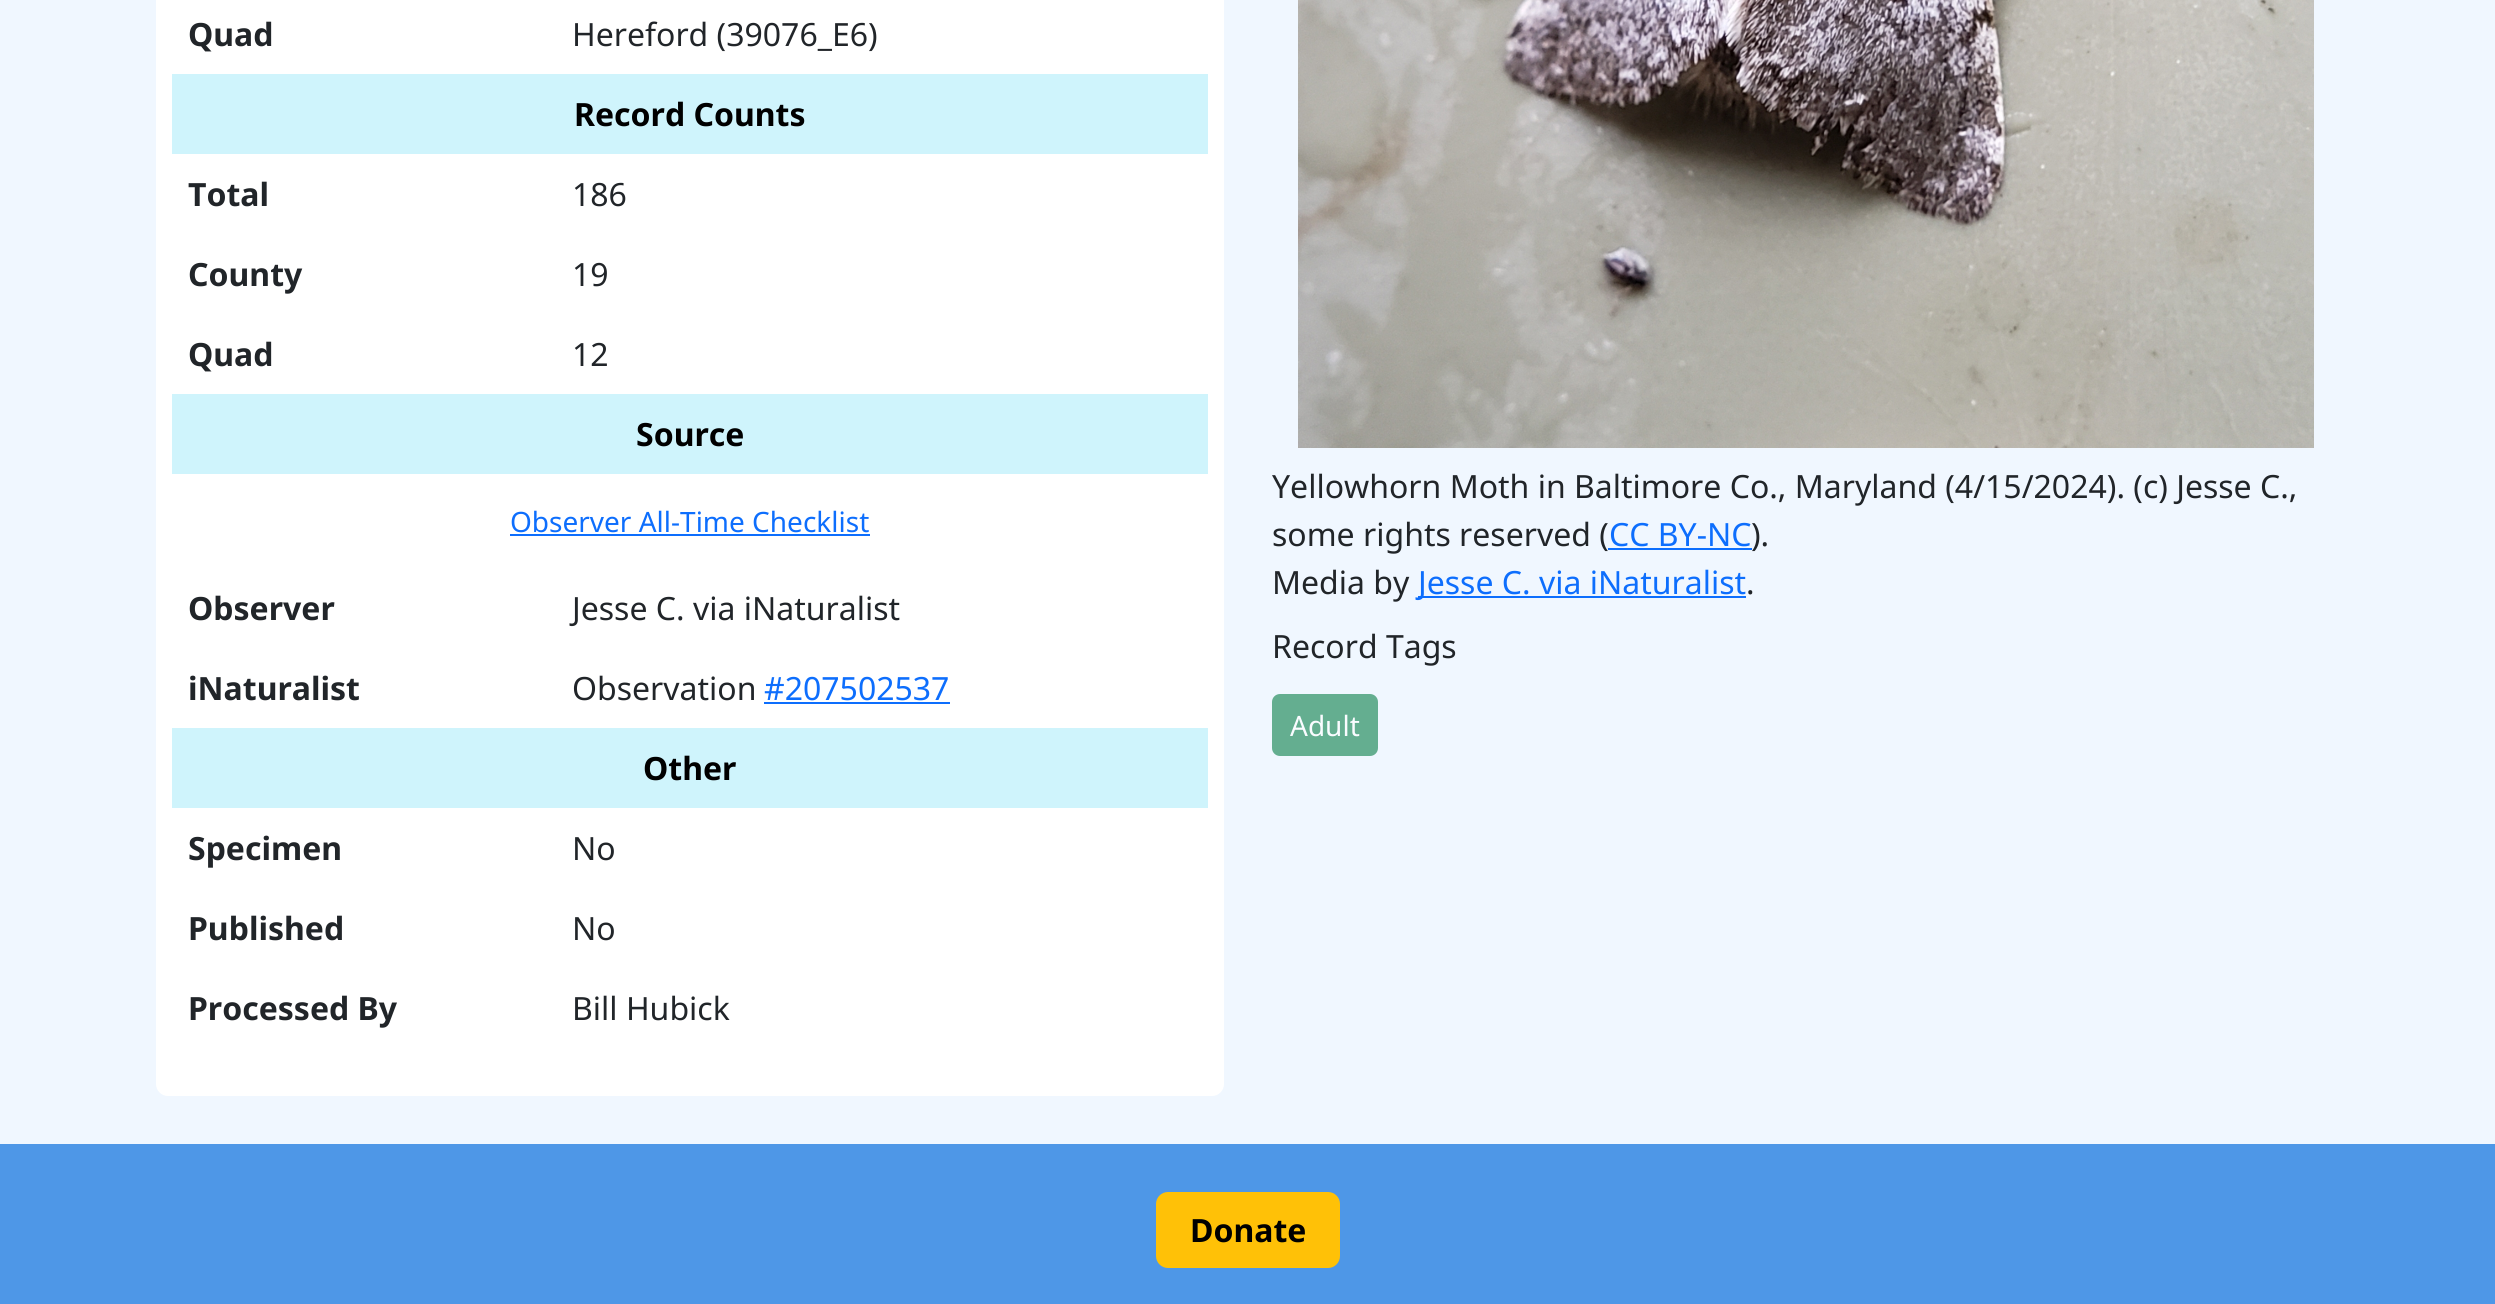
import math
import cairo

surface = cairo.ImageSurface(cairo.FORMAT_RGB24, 2495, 1304)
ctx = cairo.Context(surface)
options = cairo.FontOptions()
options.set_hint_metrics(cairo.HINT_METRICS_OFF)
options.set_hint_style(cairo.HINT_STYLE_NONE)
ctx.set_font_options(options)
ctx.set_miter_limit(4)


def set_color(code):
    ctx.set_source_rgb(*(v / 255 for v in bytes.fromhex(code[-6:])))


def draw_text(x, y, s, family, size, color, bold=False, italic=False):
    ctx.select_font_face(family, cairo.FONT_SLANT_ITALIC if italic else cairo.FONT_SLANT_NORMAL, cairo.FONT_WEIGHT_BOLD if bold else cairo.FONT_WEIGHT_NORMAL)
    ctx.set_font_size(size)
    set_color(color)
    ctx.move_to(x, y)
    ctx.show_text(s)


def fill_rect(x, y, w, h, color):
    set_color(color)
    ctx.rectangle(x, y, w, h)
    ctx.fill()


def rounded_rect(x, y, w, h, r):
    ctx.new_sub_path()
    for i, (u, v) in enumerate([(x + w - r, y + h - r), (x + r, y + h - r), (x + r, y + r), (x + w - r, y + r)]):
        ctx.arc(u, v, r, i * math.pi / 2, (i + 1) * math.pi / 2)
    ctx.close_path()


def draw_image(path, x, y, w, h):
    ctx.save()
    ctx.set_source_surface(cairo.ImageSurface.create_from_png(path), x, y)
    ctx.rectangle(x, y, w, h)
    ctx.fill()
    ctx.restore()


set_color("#f0f7ff")
ctx.paint()
set_color("#ffffff")
rounded_rect(156, -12, 1068, 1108, 12)
ctx.fill()
draw_text(188, 46, "Quad", "Noto Sans", 32, "#212529", bold=True)
draw_text(572, 46, "Hereford (39076_E6)", "Noto Sans", 32, "#212529")
fill_rect(172, 74, 1036, 80, "#cff4fc")
draw_text(574, 126, "Record Counts", "Noto Sans", 32, "#000000", bold=True)
draw_text(188, 206, "Total", "Noto Sans", 32, "#212529", bold=True)
draw_text(572, 206, "186", "Noto Sans", 32, "#212529")
draw_text(188, 286, "County", "Noto Sans", 32, "#212529", bold=True)
draw_text(572, 286, "19", "Noto Sans", 32, "#212529")
draw_text(188, 366, "Quad", "Noto Sans", 32, "#212529", bold=True)
draw_text(572, 366, "12", "Noto Sans", 32, "#212529")
fill_rect(172, 394, 1036, 80, "#cff4fc")
draw_text(636, 446, "Source", "Noto Sans", 32, "#000000", bold=True)
draw_text(510, 532, "Observer All-Time Checklist", "Noto Sans", 28, "#0d6efd")
fill_rect(510, 534, 360, 2, "#0d6efd")
draw_text(188, 620, "Observer", "Noto Sans", 32, "#212529", bold=True)
draw_text(572, 620, "Jesse C. via iNaturalist", "Noto Sans", 32, "#212529")
draw_text(188, 700, "iNaturalist", "Noto Sans", 32, "#212529", bold=True)
draw_text(572, 700, "Observation", "Noto Sans", 32, "#212529")
draw_text(764, 700, "#207502537", "Noto Sans", 32, "#0d6efd")
fill_rect(764, 702, 186, 2, "#0d6efd")
fill_rect(172, 728, 1036, 80, "#cff4fc")
draw_text(643, 780, "Other", "Noto Sans", 32, "#000000", bold=True)
draw_text(188, 860, "Specimen", "Noto Sans", 32, "#212529", bold=True)
draw_text(572, 860, "No", "Noto Sans", 32, "#212529")
draw_text(188, 940, "Published", "Noto Sans", 32, "#212529", bold=True)
draw_text(572, 940, "No", "Noto Sans", 32, "#212529")
draw_text(188, 1020, "Processed By", "Noto Sans", 32, "#212529", bold=True)
draw_text(572, 1020, "Bill Hubick", "Noto Sans", 32, "#212529")
draw_image("assets/img1.png", 1298, 0, 1016, 448)
draw_text(1272, 498, "Yellowhorn Moth in Baltimore Co., Maryland (4/15/2024). (c) Jesse C.,", "Noto Sans", 32, "#212529")
draw_text(1272, 546, "some rights reserved (", "Noto Sans", 32, "#212529")
draw_text(1609, 546, "CC BY-NC", "Noto Sans", 32, "#0d6efd")
fill_rect(1608, 548, 144, 2, "#0d6efd")
draw_text(1751, 546, ").", "Noto Sans", 32, "#212529")
draw_text(1272, 594, "Media by", "Noto Sans", 32, "#212529")
fill_rect(1418, 596, 328, 2, "#0d6efd")
draw_text(1418, 594, "Jesse C. via iNaturalist", "Noto Sans", 32, "#0d6efd")
draw_text(1746, 594, ".", "Noto Sans", 32, "#212529")
draw_text(1272, 658, "Record Tags", "Noto Sans", 32, "#212529")
set_color("#64ae90")
rounded_rect(1273, 695, 104, 60, 7)
ctx.fill_preserve()
ctx.stroke()
draw_text(1290, 736, "Adult", "Noto Sans", 28, "#fafcff")
fill_rect(0, 1144, 2495, 160, "#4e97e7")
set_color("#ffc107")
rounded_rect(1157, 1193, 182, 74, 11)
ctx.fill_preserve()
ctx.stroke()
draw_text(1190, 1242, "Donate", "Noto Sans", 32, "#000000", bold=True)
surface.write_to_png("output.png")
